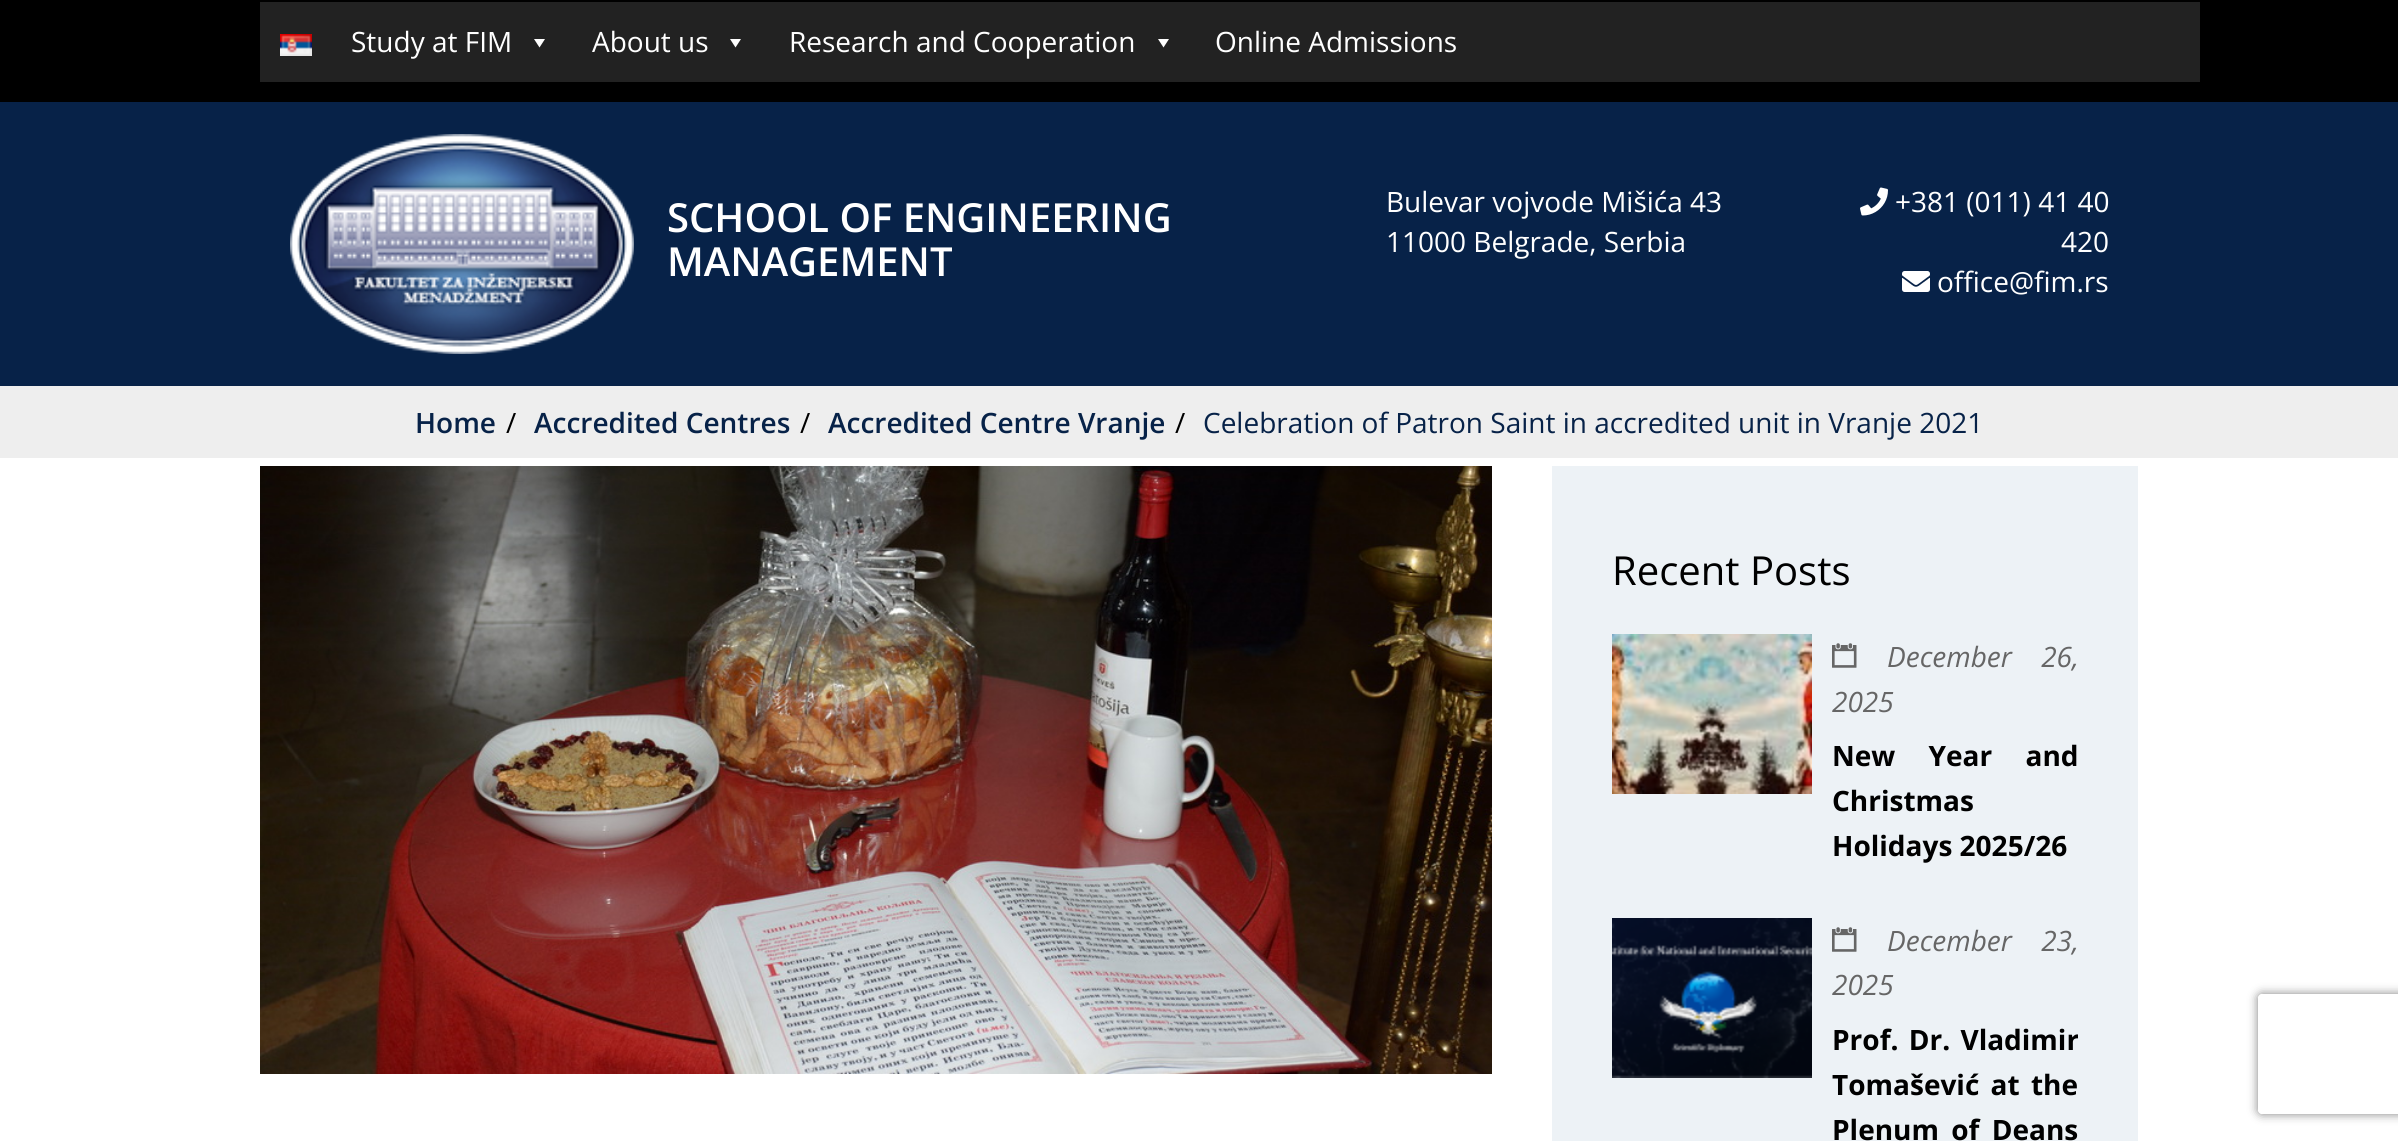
import math
import cairo

surface = cairo.ImageSurface(cairo.FORMAT_RGB24, 2398, 1141)
ctx = cairo.Context(surface)
options = cairo.FontOptions()
options.set_hint_metrics(cairo.HINT_METRICS_OFF)
options.set_hint_style(cairo.HINT_STYLE_NONE)
ctx.set_font_options(options)
ctx.set_miter_limit(4)


def set_color(code):
    ctx.set_source_rgb(*(v / 255 for v in bytes.fromhex(code[-6:])))


def draw_text(x, y, s, family, size, color, bold=False, italic=False):
    ctx.select_font_face(family, cairo.FONT_SLANT_ITALIC if italic else cairo.FONT_SLANT_NORMAL, cairo.FONT_WEIGHT_BOLD if bold else cairo.FONT_WEIGHT_NORMAL)
    ctx.set_font_size(size)
    set_color(color)
    ctx.move_to(x, y)
    ctx.show_text(s)


def draw_spaced(x, y, s, letter, word):
    ctx.move_to(x, y)
    for ch in s:
        ctx.show_text(ch)
        ctx.rel_move_to(letter + word * (ch == ' '), 0)


def fill_rect(x, y, w, h, color):
    set_color(color)
    ctx.rectangle(x, y, w, h)
    ctx.fill()


def rounded_rect(x, y, w, h, r):
    ctx.new_sub_path()
    for i, (u, v) in enumerate([(x + w - r, y + h - r), (x + r, y + h - r), (x + r, y + r), (x + w - r, y + r)]):
        ctx.arc(u, v, r, i * math.pi / 2, (i + 1) * math.pi / 2)
    ctx.close_path()


def draw_shadow(x, y, w, h, r, blur, alpha):
    ctx.push_group_with_content(cairo.CONTENT_ALPHA)
    ctx.set_operator(cairo.OPERATOR_SOURCE)
    for i in range(15, -16, -2):
        e = blur * i / 6
        if min(w, h) + 2 * e > 0:
            ctx.set_source_rgba(0, 0, 0, alpha * math.erfc((i - 1) / 8.5) / 2)
            rounded_rect(x - e, y - e, w + 2 * e, h + 2 * e, max(0, min(r + e + blur * .6, min(w, h) / 2 + e)))
            ctx.fill()
    ctx.mask(ctx.pop_group())


def draw_image(path, x, y, w, h):
    ctx.save()
    ctx.set_source_surface(cairo.ImageSurface.create_from_png(path), x, y)
    ctx.rectangle(x, y, w, h)
    ctx.fill()
    ctx.restore()


set_color("#ffffff")
ctx.paint()
fill_rect(0, 0, 2398, 102, "#000000")
fill_rect(260, 2, 1940, 80, "#222222")
draw_image("assets/img1.png", 280, 34, 32, 22)
draw_text(351, 52, "Study at FIM", "Open Sans", 28, "#ffffff")
ctx.new_path()
ctx.move_to(545, 39)
ctx.line_to(539.5, 47.5)
ctx.line_to(534, 39)
ctx.close_path()
ctx.fill()
draw_text(592, 52, "About us", "Open Sans", 28, "#ffffff")
ctx.new_path()
ctx.move_to(741, 39)
ctx.line_to(735.5, 47.5)
ctx.line_to(730, 39)
ctx.close_path()
ctx.fill()
draw_text(789, 52, "Research and Cooperation", "Open Sans", 28, "#ffffff")
ctx.new_path()
ctx.move_to(1169, 39)
ctx.line_to(1163.5, 47.5)
ctx.line_to(1158, 39)
ctx.close_path()
ctx.fill()
draw_text(1215, 52, "Online Admissions", "Open Sans", 28, "#ffffff")
fill_rect(0, 102, 2398, 284, "#072248")
draw_image("assets/img2.png", 290, 134, 344, 220)
draw_text(667, 232, "SCHOOL OF ENGINEERING", "Open Sans SemiBold", 40, "#ffffff")
draw_text(667, 276, "MANAGEMENT", "Open Sans SemiBold", 40, "#ffffff")
draw_text(1386, 212, "Bulevar vojvode Mišića 43", "Open Sans", 28, "#ffffff")
draw_text(1386, 252, "11000 Belgrade, Serbia", "Open Sans", 28, "#ffffff")
draw_image("assets/img3.png", 1860, 187, 28, 29)
draw_text(1895, 212, "+381 (011) 41 40", "Open Sans", 28, "#ffffff")
draw_text(2061, 252, "420", "Open Sans", 28, "#ffffff")
draw_image("assets/img4.png", 1902, 271, 28, 21)
draw_text(1937, 292, "office@fim.rs", "Open Sans", 28, "#ffffff")
fill_rect(0, 386, 2398, 72, "#eeeeee")
draw_text(415, 433, "Home", "Open Sans SemiBold", 28, "#072248")
draw_text(506, 433, "/", "Open Sans", 28, "#000000")
draw_text(534, 433, "Accredited Centres", "Open Sans SemiBold", 28, "#072248")
draw_text(800, 433, "/", "Open Sans", 28, "#000000")
draw_text(828, 433, "Accredited Centre Vranje", "Open Sans SemiBold", 28, "#072248")
draw_text(1175, 433, "/", "Open Sans", 28, "#000000")
draw_text(1203, 433, "Celebration of Patron Saint in accredited unit in Vranje 2021", "Open Sans", 28, "#072248")
draw_image("assets/img5.png", 260, 466, 1232, 608)
fill_rect(1552, 466, 586, 675, "#edf2f6")
draw_text(1612, 585, "Recent Posts", "Open Sans", 40, "#000000")
draw_image("assets/img6.png", 1612, 634, 200, 160)
draw_image("assets/img7.png", 1832, 643, 25, 25)
ctx.select_font_face("Open Sans", cairo.FONT_SLANT_ITALIC)
ctx.set_font_size(28)
set_color("#666666")
draw_spaced(1887, 667, "December 26,", 0, 22)
draw_text(1832, 712, "2025", "Open Sans", 28, "#666666", italic=True)
ctx.select_font_face("Open Sans", cairo.FONT_SLANT_NORMAL, cairo.FONT_WEIGHT_BOLD)
set_color("#000000")
draw_spaced(1832, 766, "New Year and", 0, 26)
draw_text(1832, 811, "Christmas", "Open Sans", 28, "#000000", bold=True)
draw_text(1832, 856, "Holidays 2025/26", "Open Sans", 28, "#000000", bold=True)
draw_image("assets/img8.png", 1612, 918, 200, 160)
draw_image("assets/img7.png", 1832, 927, 25, 25)
ctx.select_font_face("Open Sans", cairo.FONT_SLANT_ITALIC)
set_color("#666666")
draw_spaced(1887, 951, "December 23,", 0, 22)
draw_text(1832, 995, "2025", "Open Sans", 28, "#666666", italic=True)
ctx.save()
ctx.rectangle(1832, 1018, 246, 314)
ctx.clip()
ctx.select_font_face("Open Sans", cairo.FONT_SLANT_NORMAL, cairo.FONT_WEIGHT_BOLD)
set_color("#000000")
draw_spaced(1832, 1050, "Prof. Dr. Vladimir", 0, 3)
ctx.restore()
ctx.select_font_face("Open Sans", cairo.FONT_SLANT_NORMAL, cairo.FONT_WEIGHT_BOLD)
set_color("#000000")
draw_spaced(1832, 1095, "Tomašević at the", 0, 4)
draw_spaced(1832, 1140, "Plenum of Deans", 0, 5)
ctx.save()
ctx.set_fill_rule(cairo.FILL_RULE_EVEN_ODD)
ctx.new_path()
ctx.move_to(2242, 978)
ctx.line_to(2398, 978)
ctx.line_to(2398, 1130)
ctx.line_to(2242, 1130)
ctx.close_path()
ctx.move_to(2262, 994)
ctx.line_to(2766, 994)
ctx.curve_to(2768, 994, 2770, 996, 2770, 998)
ctx.line_to(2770, 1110)
ctx.curve_to(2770, 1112, 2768, 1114, 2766, 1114)
ctx.line_to(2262, 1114)
ctx.curve_to(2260, 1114, 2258, 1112, 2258, 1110)
ctx.line_to(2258, 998)
ctx.curve_to(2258, 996, 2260, 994, 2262, 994)
ctx.close_path()
ctx.clip()
set_color("#808080")
draw_shadow(2258, 994, 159, 120, 4, 5, 1)
ctx.restore()
surface.write_to_png("output.png")
